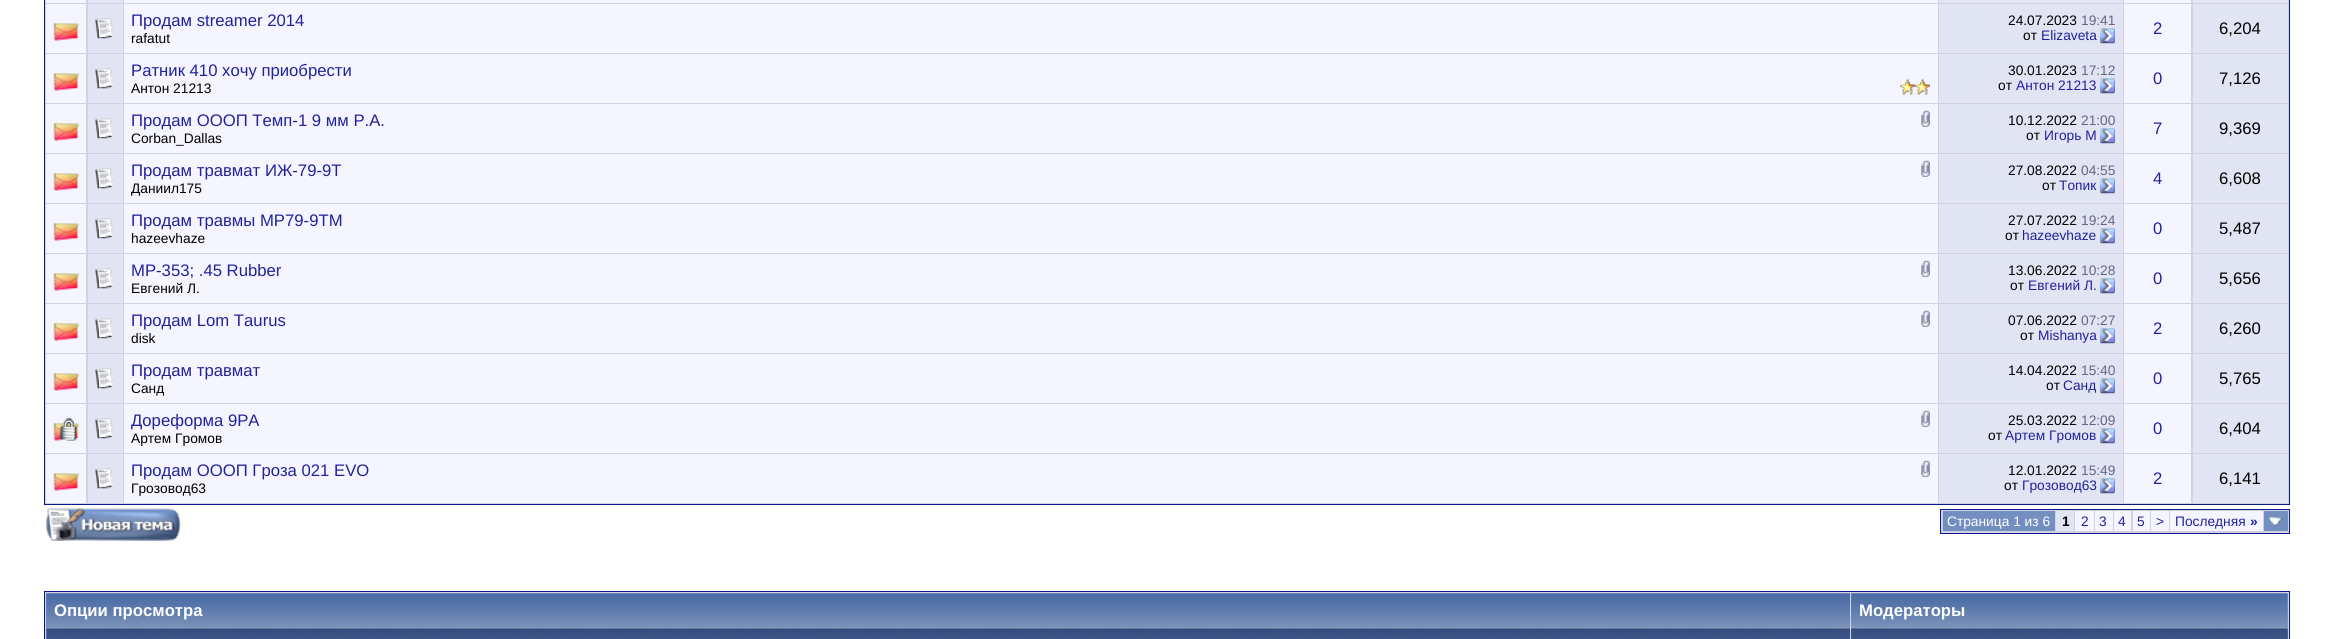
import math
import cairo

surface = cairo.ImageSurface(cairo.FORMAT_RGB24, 2333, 639)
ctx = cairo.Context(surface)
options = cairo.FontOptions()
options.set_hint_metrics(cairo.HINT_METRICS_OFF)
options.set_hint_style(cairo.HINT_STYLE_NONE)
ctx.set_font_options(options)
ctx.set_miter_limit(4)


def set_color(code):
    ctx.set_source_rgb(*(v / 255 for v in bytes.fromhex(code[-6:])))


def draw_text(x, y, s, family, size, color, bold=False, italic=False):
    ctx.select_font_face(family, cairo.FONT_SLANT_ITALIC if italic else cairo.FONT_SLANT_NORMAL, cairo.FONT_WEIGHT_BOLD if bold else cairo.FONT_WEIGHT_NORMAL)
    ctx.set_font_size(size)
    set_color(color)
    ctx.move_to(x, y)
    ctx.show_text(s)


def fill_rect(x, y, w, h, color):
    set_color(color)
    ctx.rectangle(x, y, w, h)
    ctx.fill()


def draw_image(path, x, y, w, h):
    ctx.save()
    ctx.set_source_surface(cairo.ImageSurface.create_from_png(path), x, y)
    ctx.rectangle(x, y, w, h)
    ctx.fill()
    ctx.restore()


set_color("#ffffff")
ctx.paint()
set_color("#d1d1e1")
ctx.rectangle(44.5, -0.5, 2245, 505)
ctx.fill_preserve()
set_color("#0b198c")
ctx.set_line_width(1)
ctx.stroke()
fill_rect(46, 0, 40, 3, "#f5f5ff")
fill_rect(88, 0, 35, 3, "#e1e4f2")
fill_rect(124, 0, 1814, 3, "#f5f5ff")
fill_rect(1939, 0, 184, 3, "#e1e4f2")
fill_rect(2124, 0, 67, 3, "#f5f5ff")
fill_rect(2193, 0, 95, 3, "#e1e4f2")
fill_rect(46, 4, 40, 49, "#f5f5ff")
draw_image("assets/img1.png", 53, 23, 26, 18)
fill_rect(88, 4, 35, 49, "#e1e4f2")
draw_image("assets/img2.png", 95, 18, 19, 21)
fill_rect(124, 4, 1814, 49, "#f5f5ff")
draw_text(131, 26, "Продам streamer 2014", "Liberation Sans", 16.7, "#22229c")
draw_text(131, 43, "rafatut", "Liberation Sans", 13.75, "#000000")
fill_rect(1939, 4, 184, 49, "#e1e4f2")
draw_text(2008, 25, "24.07.2023", "Liberation Sans", 13.75, "#000000")
draw_text(2081, 25, "19:41", "Liberation Sans", 13.75, "#666686")
draw_text(2023, 40, "от", "Liberation Sans", 13.75, "#000000")
draw_text(2041, 40, "Elizaveta", "Liberation Sans", 13.75, "#22229c")
draw_image("assets/img3.png", 2100, 28, 15, 16)
fill_rect(2124, 4, 67, 49, "#f5f5ff")
draw_text(2153, 34, "2", "Liberation Sans", 16.7, "#22229c")
fill_rect(2193, 4, 95, 49, "#e1e4f2")
draw_text(2219, 34, "6,204", "Liberation Sans", 16.7, "#000000")
fill_rect(46, 54, 40, 49, "#f5f5ff")
draw_image("assets/img1.png", 53, 73, 26, 18)
fill_rect(88, 54, 35, 49, "#e1e4f2")
draw_image("assets/img2.png", 95, 68, 19, 21)
fill_rect(124, 54, 1814, 49, "#f5f5ff")
draw_text(131, 76, "Ратник 410 хочу приобрести", "Liberation Sans", 16.7, "#22229c")
draw_text(131, 93, "Антон 21213", "Liberation Sans", 13.75, "#000000")
draw_image("assets/img4.png", 1899, 79, 31, 16)
fill_rect(1939, 54, 184, 49, "#e1e4f2")
draw_text(2008, 75, "30.01.2023", "Liberation Sans", 13.75, "#000000")
draw_text(2081, 75, "17:12", "Liberation Sans", 13.75, "#666686")
draw_text(1998, 90, "от", "Liberation Sans", 13.75, "#000000")
draw_text(2016, 90, "Антон 21213", "Liberation Sans", 13.75, "#22229c")
draw_image("assets/img5.png", 2100, 78, 15, 16)
fill_rect(2124, 54, 67, 49, "#f5f5ff")
draw_text(2153, 84, "0", "Liberation Sans", 16.7, "#22229c")
fill_rect(2193, 54, 95, 49, "#e1e4f2")
draw_text(2219, 84, "7,126", "Liberation Sans", 16.7, "#000000")
fill_rect(46, 104, 40, 49, "#f5f5ff")
draw_image("assets/img1.png", 53, 123, 26, 18)
fill_rect(88, 104, 35, 49, "#e1e4f2")
draw_image("assets/img2.png", 95, 118, 19, 21)
fill_rect(124, 104, 1814, 49, "#f5f5ff")
draw_text(131, 126, "Продам ОООП Темп-1 9 мм Р.А.", "Liberation Sans", 16.7, "#22229c")
draw_image("assets/img6.png", 1921, 110, 9, 17)
draw_text(131, 143, "Corban_Dallas", "Liberation Sans", 13.75, "#000000")
fill_rect(1939, 104, 184, 49, "#e1e4f2")
draw_text(2008, 125, "10.12.2022", "Liberation Sans", 13.75, "#000000")
draw_text(2081, 125, "21:00", "Liberation Sans", 13.75, "#666686")
draw_text(2026, 140, "от", "Liberation Sans", 13.75, "#000000")
draw_text(2044, 140, "Игорь М", "Liberation Sans", 13.75, "#22229c")
draw_image("assets/img5.png", 2100, 128, 15, 16)
fill_rect(2124, 104, 67, 49, "#f5f5ff")
draw_text(2153, 134, "7", "Liberation Sans", 16.7, "#22229c")
fill_rect(2193, 104, 95, 49, "#e1e4f2")
draw_text(2219, 134, "9,369", "Liberation Sans", 16.7, "#000000")
fill_rect(46, 154, 40, 49, "#f5f5ff")
draw_image("assets/img1.png", 53, 173, 26, 18)
fill_rect(88, 154, 35, 49, "#e1e4f2")
draw_image("assets/img2.png", 95, 168, 19, 21)
fill_rect(124, 154, 1814, 49, "#f5f5ff")
draw_text(131, 176, "Продам травмат ИЖ-79-9Т", "Liberation Sans", 16.7, "#22229c")
draw_image("assets/img6.png", 1921, 160, 9, 17)
draw_text(131, 193, "Даниил175", "Liberation Sans", 13.75, "#000000")
fill_rect(1939, 154, 184, 49, "#e1e4f2")
draw_text(2008, 175, "27.08.2022", "Liberation Sans", 13.75, "#000000")
draw_text(2081, 175, "04:55", "Liberation Sans", 13.75, "#666686")
draw_text(2042, 190, "от", "Liberation Sans", 13.75, "#000000")
draw_text(2059, 190, "Топик", "Liberation Sans", 13.75, "#22229c")
draw_image("assets/img5.png", 2100, 178, 15, 16)
fill_rect(2124, 154, 67, 49, "#f5f5ff")
draw_text(2153, 184, "4", "Liberation Sans", 16.7, "#22229c")
fill_rect(2193, 154, 95, 49, "#e1e4f2")
draw_text(2219, 184, "6,608", "Liberation Sans", 16.7, "#000000")
fill_rect(46, 204, 40, 49, "#f5f5ff")
draw_image("assets/img1.png", 53, 223, 26, 18)
fill_rect(88, 204, 35, 49, "#e1e4f2")
draw_image("assets/img2.png", 95, 218, 19, 21)
fill_rect(124, 204, 1814, 49, "#f5f5ff")
draw_text(131, 226, "Продам травмы МР79-9ТМ", "Liberation Sans", 16.7, "#22229c")
draw_text(131, 243, "hazeevhaze", "Liberation Sans", 13.75, "#000000")
fill_rect(1939, 204, 184, 49, "#e1e4f2")
draw_text(2008, 225, "27.07.2022", "Liberation Sans", 13.75, "#000000")
draw_text(2081, 225, "19:24", "Liberation Sans", 13.75, "#666686")
draw_text(2005, 240, "от", "Liberation Sans", 13.75, "#000000")
draw_text(2022, 240, "hazeevhaze", "Liberation Sans", 13.75, "#22229c")
draw_image("assets/img5.png", 2100, 228, 15, 16)
fill_rect(2124, 204, 67, 49, "#f5f5ff")
draw_text(2153, 234, "0", "Liberation Sans", 16.7, "#22229c")
fill_rect(2193, 204, 95, 49, "#e1e4f2")
draw_text(2219, 234, "5,487", "Liberation Sans", 16.7, "#000000")
fill_rect(46, 254, 40, 49, "#f5f5ff")
draw_image("assets/img1.png", 53, 273, 26, 18)
fill_rect(88, 254, 35, 49, "#e1e4f2")
draw_image("assets/img7.png", 95, 268, 19, 21)
fill_rect(124, 254, 1814, 49, "#f5f5ff")
draw_text(131, 276, "МР-353; .45 Rubber", "Liberation Sans", 16.7, "#22229c")
draw_image("assets/img6.png", 1921, 260, 9, 17)
draw_text(131, 293, "Евгений Л.", "Liberation Sans", 13.75, "#000000")
fill_rect(1939, 254, 184, 49, "#e1e4f2")
draw_text(2008, 275, "13.06.2022", "Liberation Sans", 13.75, "#000000")
draw_text(2081, 275, "10:28", "Liberation Sans", 13.75, "#666686")
draw_text(2010, 290, "от", "Liberation Sans", 13.75, "#000000")
draw_text(2028, 290, "Евгений Л.", "Liberation Sans", 13.75, "#22229c")
draw_image("assets/img5.png", 2100, 278, 15, 16)
fill_rect(2124, 254, 67, 49, "#f5f5ff")
draw_text(2153, 284, "0", "Liberation Sans", 16.7, "#22229c")
fill_rect(2193, 254, 95, 49, "#e1e4f2")
draw_text(2219, 284, "5,656", "Liberation Sans", 16.7, "#000000")
fill_rect(46, 304, 40, 49, "#f5f5ff")
draw_image("assets/img1.png", 53, 323, 26, 18)
fill_rect(88, 304, 35, 49, "#e1e4f2")
draw_image("assets/img2.png", 95, 318, 19, 21)
fill_rect(124, 304, 1814, 49, "#f5f5ff")
draw_text(131, 326, "Продам Lom Taurus", "Liberation Sans", 16.7, "#22229c")
draw_image("assets/img6.png", 1921, 310, 9, 17)
draw_text(131, 343, "disk", "Liberation Sans", 13.75, "#000000")
fill_rect(1939, 304, 184, 49, "#e1e4f2")
draw_text(2008, 325, "07.06.2022", "Liberation Sans", 13.75, "#000000")
draw_text(2081, 325, "07:27", "Liberation Sans", 13.75, "#666686")
draw_text(2020, 340, "от", "Liberation Sans", 13.75, "#000000")
draw_text(2038, 340, "Mishanya", "Liberation Sans", 13.75, "#22229c")
draw_image("assets/img5.png", 2100, 328, 15, 16)
fill_rect(2124, 304, 67, 49, "#f5f5ff")
draw_text(2153, 334, "2", "Liberation Sans", 16.7, "#22229c")
fill_rect(2193, 304, 95, 49, "#e1e4f2")
draw_text(2219, 334, "6,260", "Liberation Sans", 16.7, "#000000")
fill_rect(46, 354, 40, 49, "#f5f5ff")
draw_image("assets/img1.png", 53, 373, 26, 18)
fill_rect(88, 354, 35, 49, "#e1e4f2")
draw_image("assets/img2.png", 95, 368, 19, 21)
fill_rect(124, 354, 1814, 49, "#f5f5ff")
draw_text(131, 376, "Продам травмат", "Liberation Sans", 16.7, "#22229c")
draw_text(131, 393, "Санд", "Liberation Sans", 13.75, "#000000")
fill_rect(1939, 354, 184, 49, "#e1e4f2")
draw_text(2008, 375, "14.04.2022", "Liberation Sans", 13.75, "#000000")
draw_text(2081, 375, "15:40", "Liberation Sans", 13.75, "#666686")
draw_text(2046, 390, "от", "Liberation Sans", 13.75, "#000000")
draw_text(2063, 390, "Санд", "Liberation Sans", 13.75, "#22229c")
draw_image("assets/img5.png", 2100, 378, 15, 16)
fill_rect(2124, 354, 67, 49, "#f5f5ff")
draw_text(2153, 384, "0", "Liberation Sans", 16.7, "#22229c")
fill_rect(2193, 354, 95, 49, "#e1e4f2")
draw_text(2219, 384, "5,765", "Liberation Sans", 16.7, "#000000")
fill_rect(46, 404, 40, 49, "#f5f5ff")
draw_image("assets/img8.png", 53, 418, 26, 23)
fill_rect(88, 404, 35, 49, "#e1e4f2")
draw_image("assets/img9.png", 95, 418, 19, 21)
fill_rect(124, 404, 1814, 49, "#f5f5ff")
draw_text(131, 426, "Дореформа 9РА", "Liberation Sans", 16.7, "#22229c")
draw_image("assets/img10.png", 1921, 410, 9, 17)
draw_text(131, 443, "Артем Громов", "Liberation Sans", 13.75, "#000000")
fill_rect(1939, 404, 184, 49, "#e1e4f2")
draw_text(2008, 425, "25.03.2022", "Liberation Sans", 13.75, "#000000")
draw_text(2081, 425, "12:09", "Liberation Sans", 13.75, "#666686")
draw_text(1988, 440, "от", "Liberation Sans", 13.75, "#000000")
draw_text(2005, 440, "Артем Громов", "Liberation Sans", 13.75, "#22229c")
draw_image("assets/img5.png", 2100, 428, 15, 16)
fill_rect(2124, 404, 67, 49, "#f5f5ff")
draw_text(2153, 434, "0", "Liberation Sans", 16.7, "#22229c")
fill_rect(2193, 404, 95, 49, "#e1e4f2")
draw_text(2219, 434, "6,404", "Liberation Sans", 16.7, "#000000")
fill_rect(46, 454, 40, 49, "#f5f5ff")
draw_image("assets/img1.png", 53, 473, 26, 18)
fill_rect(88, 454, 35, 49, "#e1e4f2")
draw_image("assets/img2.png", 95, 468, 19, 21)
fill_rect(124, 454, 1814, 49, "#f5f5ff")
draw_text(131, 476, "Продам ОООП Гроза 021 EVO", "Liberation Sans", 16.7, "#22229c")
draw_image("assets/img6.png", 1921, 460, 9, 17)
draw_text(131, 493, "Грозовод63", "Liberation Sans", 13.75, "#000000")
fill_rect(1939, 454, 184, 49, "#e1e4f2")
draw_text(2008, 475, "12.01.2022", "Liberation Sans", 13.75, "#000000")
draw_text(2081, 475, "15:49", "Liberation Sans", 13.75, "#666686")
draw_text(2004, 490, "от", "Liberation Sans", 13.75, "#000000")
draw_text(2022, 490, "Грозовод63", "Liberation Sans", 13.75, "#22229c")
draw_image("assets/img5.png", 2100, 478, 15, 16)
fill_rect(2124, 454, 67, 49, "#f5f5ff")
draw_text(2153, 484, "2", "Liberation Sans", 16.7, "#22229c")
fill_rect(2193, 454, 95, 49, "#e1e4f2")
draw_text(2219, 484, "6,141", "Liberation Sans", 16.7, "#000000")
draw_image("assets/img11.png", 46, 508, 135, 33)
set_color("#d1d1e1")
ctx.rectangle(1940.5, 509.5, 349, 24)
ctx.fill_preserve()
set_color("#0b198c")
ctx.stroke()
fill_rect(1943, 511, 112, 20, "#738fbf")
draw_text(1947, 526, "Страница 1 из 6", "Liberation Sans", 13.75, "#ffffff")
fill_rect(2056, 511, 18, 20, "#e1e4f2")
draw_text(2062, 526, "1", "Liberation Sans", 13.75, "#000000", bold=True)
fill_rect(2075, 511, 19, 20, "#f5f5ff")
draw_text(2081, 526, "2", "Liberation Sans", 13.75, "#22229c")
fill_rect(2095, 511, 18, 20, "#f5f5ff")
draw_text(2099, 526, "3", "Liberation Sans", 13.75, "#22229c")
fill_rect(2114, 511, 17, 20, "#f5f5ff")
draw_text(2118, 526, "4", "Liberation Sans", 13.75, "#22229c")
fill_rect(2133, 511, 17, 20, "#f5f5ff")
draw_text(2137, 526, "5", "Liberation Sans", 13.75, "#22229c")
fill_rect(2151, 511, 18, 20, "#f5f5ff")
draw_text(2156, 526, ">", "Liberation Sans", 13.75, "#22229c")
fill_rect(2170, 511, 93, 20, "#f5f5ff")
draw_text(2175, 526, "Последняя", "Liberation Sans", 13.75, "#22229c")
draw_text(2250, 526, "»", "Liberation Sans", 13.75, "#22229c", bold=True)
fill_rect(2264, 511, 24, 20, "#738fbf")
draw_image("assets/img12.png", 2268, 517, 15, 9)
set_color("#d1d1e1")
ctx.rectangle(44.5, 591.5, 2245, 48)
ctx.fill_preserve()
set_color("#0b198c")
ctx.stroke()
fill_rect(46, 594, 1804, 34, "#869bbf")
draw_image("assets/img13.png", 46, 593, 1804, 34)
draw_text(54, 616, "Опции просмотра", "Liberation Sans", 16.7, "#ffffff", bold=True)
fill_rect(1851, 594, 437, 34, "#869bbf")
draw_image("assets/img14.png", 1851, 593, 437, 34)
draw_text(1859, 616, "Модераторы", "Liberation Sans", 16.7, "#ffffff", bold=True)
draw_image("assets/img15.png", 46, 628, 1804, 11)
fill_rect(1851, 629, 437, 10, "#5c7099")
draw_image("assets/img16.png", 1851, 628, 437, 11)
surface.write_to_png("output.png")
